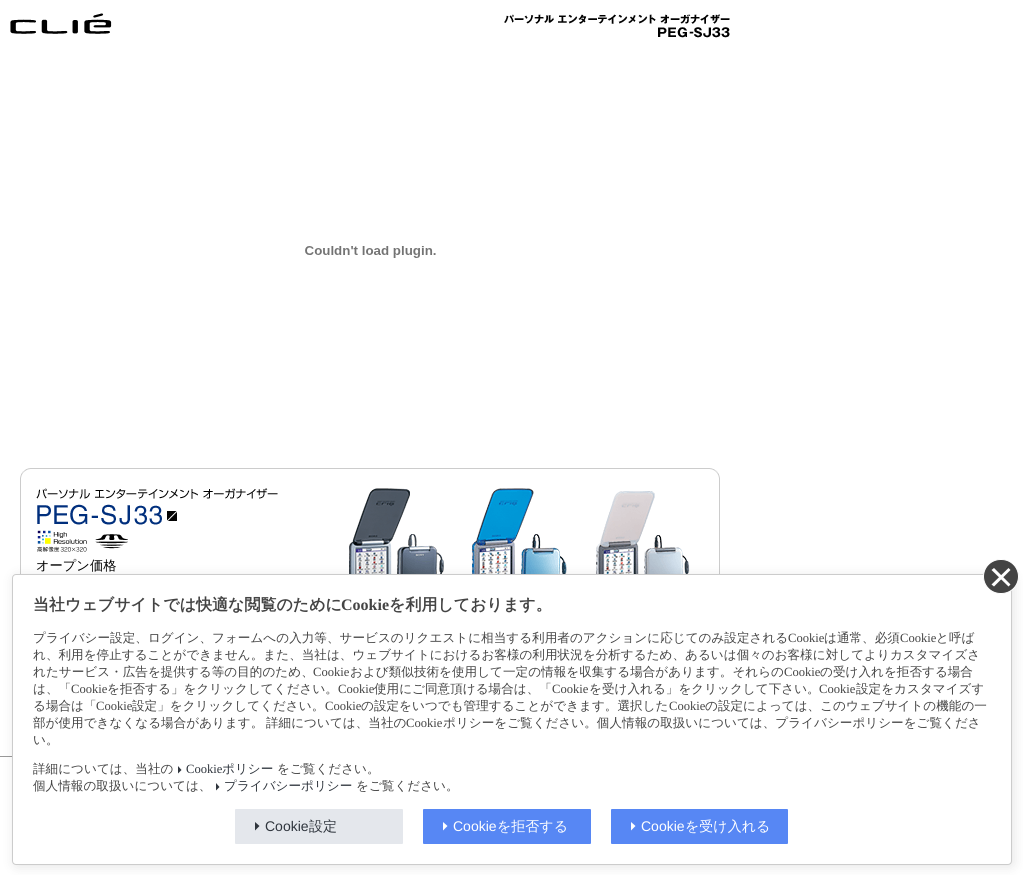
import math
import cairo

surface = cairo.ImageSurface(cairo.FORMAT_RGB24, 1023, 875)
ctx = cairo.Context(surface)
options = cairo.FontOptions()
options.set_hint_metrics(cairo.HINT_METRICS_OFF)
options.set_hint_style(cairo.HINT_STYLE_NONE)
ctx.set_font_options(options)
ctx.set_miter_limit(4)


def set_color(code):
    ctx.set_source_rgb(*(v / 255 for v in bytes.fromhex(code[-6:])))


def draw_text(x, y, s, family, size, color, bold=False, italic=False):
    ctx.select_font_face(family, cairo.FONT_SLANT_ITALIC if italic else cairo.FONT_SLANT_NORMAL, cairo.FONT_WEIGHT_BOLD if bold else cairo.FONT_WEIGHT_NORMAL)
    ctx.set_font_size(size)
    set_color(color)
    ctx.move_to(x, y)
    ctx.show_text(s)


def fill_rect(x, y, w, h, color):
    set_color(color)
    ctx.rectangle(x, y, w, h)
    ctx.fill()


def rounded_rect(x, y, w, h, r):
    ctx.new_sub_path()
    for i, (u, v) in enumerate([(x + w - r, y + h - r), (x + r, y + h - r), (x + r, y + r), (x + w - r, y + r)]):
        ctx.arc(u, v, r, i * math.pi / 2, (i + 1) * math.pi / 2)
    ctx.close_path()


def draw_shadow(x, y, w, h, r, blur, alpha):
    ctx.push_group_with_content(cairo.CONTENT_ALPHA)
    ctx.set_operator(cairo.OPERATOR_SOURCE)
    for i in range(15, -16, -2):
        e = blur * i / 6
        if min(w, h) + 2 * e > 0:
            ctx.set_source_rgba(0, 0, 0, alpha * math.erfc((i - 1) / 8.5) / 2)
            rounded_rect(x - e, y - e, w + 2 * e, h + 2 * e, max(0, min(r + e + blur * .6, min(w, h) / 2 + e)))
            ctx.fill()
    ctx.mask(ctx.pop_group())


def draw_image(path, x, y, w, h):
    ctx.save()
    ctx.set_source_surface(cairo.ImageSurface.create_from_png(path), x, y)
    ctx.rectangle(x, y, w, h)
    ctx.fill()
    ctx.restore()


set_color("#ffffff")
ctx.paint()
draw_image("assets/img1.png", 10, 13, 720, 25)
draw_image("assets/img2.png", 305, 246, 131, 12)
draw_image("assets/img3.png", 20, 468, 700, 10)
fill_rect(20, 478, 1, 96, "#cccccc")
draw_image("assets/img4.png", 36, 488, 242, 11)
draw_image("assets/img5.png", 37, 504, 140, 21)
draw_image("assets/img6.png", 37, 530, 91, 22)
draw_text(36, 570, "オープン価格", "WenQuanYi Zen Hei Medium", 13.25, "#000000")
draw_image("assets/img7.png", 349, 488, 108, 86)
draw_image("assets/img8.png", 472, 488, 109, 86)
draw_image("assets/img9.png", 596, 491, 108, 83)
fill_rect(719, 478, 1, 96, "#cccccc")
fill_rect(0, 756, 12, 1, "#999999")
set_color("#000000")
draw_shadow(14, 576, 1000, 291, 4, 6, 0.1)
set_color("#ffffff")
rounded_rect(12.5, 574.5, 999, 290, 3.5)
ctx.fill_preserve()
set_color("#cccccc")
ctx.set_line_width(1)
ctx.stroke()
set_color("#444444")
rounded_rect(983.5, 559.5, 35, 34, 17)
ctx.fill_preserve()
set_color("#ffffff")
ctx.stroke()
ctx.new_path()
ctx.move_to(991.5, 584.5)
ctx.line_to(1008.5, 568)
ctx.line_to(1010.5, 570)
ctx.line_to(994, 586.5)
ctx.close_path()
ctx.fill()
ctx.new_path()
ctx.move_to(994, 568)
ctx.line_to(1010.5, 584.5)
ctx.line_to(1008.5, 586.5)
ctx.line_to(991.5, 570)
ctx.close_path()
ctx.fill()
draw_text(33, 610, "当社ウェブサイトでは快適な閲覧のために", "WenQuanYi Zen Hei", 16, "#444444", bold=True)
draw_text(341, 610, "Cookie", "Liberation Serif", 16, "#444444", bold=True)
draw_text(389, 610, "を利用しております。", "WenQuanYi Zen Hei", 16, "#444444", bold=True)
draw_text(33, 642, "プライバシー設定、ログイン、フォームへの入力等、サービスのリクエストに相当する利用者のアクションに応じてのみ設定される", "WenQuanYi Zen Hei Medium", 12.6, "#444444")
draw_text(788, 642, "Cookie", "Liberation Serif", 12.6, "#444444")
draw_text(824, 642, "は通常、必須", "WenQuanYi Zen Hei Medium", 12.6, "#444444")
draw_text(900, 642, "Cookie", "Liberation Serif", 12.6, "#444444")
draw_text(936, 642, "と呼ば", "WenQuanYi Zen Hei Medium", 12.6, "#444444")
draw_text(33, 659, "れ、利用を停止することができません。また、当社は、ウェブサイトにおけるお客様の利用状況を分析するため、あるいは個々のお客様に対してよりカスタマイズさ", "WenQuanYi Zen Hei Medium", 12.6, "#444444")
draw_text(33, 676, "れたサービス・広告を提供する等の目的のため、", "WenQuanYi Zen Hei Medium", 12.6, "#444444")
draw_text(313, 676, "Cookie", "Liberation Serif", 12.6, "#444444")
draw_text(350, 676, "および類似技術を使用して一定の情報を収集する場合があります。それらの", "WenQuanYi Zen Hei Medium", 12.6, "#444444")
draw_text(784, 676, "Cookie", "Liberation Serif", 12.6, "#444444")
draw_text(820, 676, "の受け入れを拒否する場合", "WenQuanYi Zen Hei Medium", 12.6, "#444444")
draw_text(33, 693, "は、「", "WenQuanYi Zen Hei Medium", 12.6, "#444444")
draw_text(71, 693, "Cookie", "Liberation Serif", 12.6, "#444444")
draw_text(107, 693, "を拒否する」をクリックしてください。", "WenQuanYi Zen Hei Medium", 12.6, "#444444")
draw_text(338, 693, "Cookie", "Liberation Serif", 12.6, "#444444")
draw_text(374, 693, "使用にご同意頂ける場合は、「", "WenQuanYi Zen Hei Medium", 12.6, "#444444")
draw_text(552, 693, "Cookie", "Liberation Serif", 12.6, "#444444")
draw_text(589, 693, "を受け入れる」をクリックして下さい。", "WenQuanYi Zen Hei Medium", 12.6, "#444444")
draw_text(819, 693, "Cookie", "Liberation Serif", 12.6, "#444444")
draw_text(856, 693, "設定をカスタマイズす", "WenQuanYi Zen Hei Medium", 12.6, "#444444")
draw_text(33, 710, "る場合は「", "WenQuanYi Zen Hei Medium", 12.6, "#444444")
draw_text(96, 710, "Cookie", "Liberation Serif", 12.6, "#444444")
draw_text(132, 710, "設定」をクリックしてください。", "WenQuanYi Zen Hei Medium", 12.6, "#444444")
draw_text(325, 710, "Cookie", "Liberation Serif", 12.6, "#444444")
draw_text(361, 710, "の設定をいつでも管理することができます。選択した", "WenQuanYi Zen Hei Medium", 12.6, "#444444")
draw_text(669, 710, "Cookie", "Liberation Serif", 12.6, "#444444")
draw_text(705, 710, "の設定によっては、このウェブサイトの機能の一", "WenQuanYi Zen Hei Medium", 12.6, "#444444")
draw_text(33, 727, "部が使用できなくなる場合があります。", "WenQuanYi Zen Hei Medium", 12.6, "#444444")
draw_text(266, 727, "詳細については、当社の", "WenQuanYi Zen Hei Medium", 12.6, "#444444")
draw_text(406, 727, "Cookie", "Liberation Serif", 12.6, "#444444")
draw_text(443, 727, "ポリシーをご覧ください。個人情報の取扱いについては、プライバシーポリシーをご覧くださ", "WenQuanYi Zen Hei Medium", 12.6, "#444444")
draw_text(33, 744, "い。", "WenQuanYi Zen Hei Medium", 12.6, "#444444")
draw_text(33, 773, "詳細については、当社の", "WenQuanYi Zen Hei Medium", 12.6, "#444444")
set_color("#2f353d")
ctx.new_path()
ctx.move_to(178, 766)
ctx.line_to(181.5, 770)
ctx.line_to(178, 773.5)
ctx.close_path()
ctx.fill()
draw_text(186, 773, "Cookie", "Liberation Serif", 12.6, "#2f353d")
draw_text(222, 773, "ポリシー", "WenQuanYi Zen Hei Medium", 12.6, "#2f353d")
draw_text(277, 773, "をご覧ください。", "WenQuanYi Zen Hei Medium", 12.6, "#444444")
draw_text(33, 790, "個人情報の取扱いについては、", "WenQuanYi Zen Hei Medium", 12.6, "#444444")
set_color("#2f353d")
ctx.new_path()
ctx.move_to(216, 783)
ctx.line_to(219.5, 787)
ctx.line_to(216, 790.5)
ctx.close_path()
ctx.fill()
draw_text(224, 790, "プライバシーポリシー", "WenQuanYi Zen Hei Medium", 12.6, "#2f353d")
draw_text(356, 790, "をご覧ください。", "WenQuanYi Zen Hei Medium", 12.6, "#444444")
set_color("#e4e7ec")
rounded_rect(235, 809, 168, 35, 1)
ctx.fill()
set_color("#2f353d")
ctx.new_path()
ctx.move_to(255, 822)
ctx.line_to(259.5, 826)
ctx.line_to(255, 830.5)
ctx.close_path()
ctx.fill()
draw_text(265, 831, "Cookie", "Liberation Sans", 14, "#2f353d")
draw_text(309, 831, "設定", "WenQuanYi Zen Hei Medium", 14, "#2f353d")
set_color("#5787f4")
rounded_rect(423, 809, 168, 35, 1)
ctx.fill()
set_color("#ffffff")
ctx.new_path()
ctx.move_to(443, 822)
ctx.line_to(447.5, 826)
ctx.line_to(443, 830.5)
ctx.close_path()
ctx.fill()
draw_text(453, 831, "Cookie", "Liberation Sans", 14, "#ffffff")
draw_text(497, 831, "を拒否する", "WenQuanYi Zen Hei Medium", 14, "#ffffff")
set_color("#5787f4")
rounded_rect(611, 809, 177, 35, 1)
ctx.fill()
set_color("#ffffff")
ctx.new_path()
ctx.move_to(631, 822)
ctx.line_to(635.5, 826)
ctx.line_to(631, 830.5)
ctx.close_path()
ctx.fill()
draw_text(641, 831, "Cookie", "Liberation Sans", 14, "#ffffff")
draw_text(685, 831, "を受け入れる", "WenQuanYi Zen Hei Medium", 14, "#ffffff")
surface.write_to_png("output.png")
